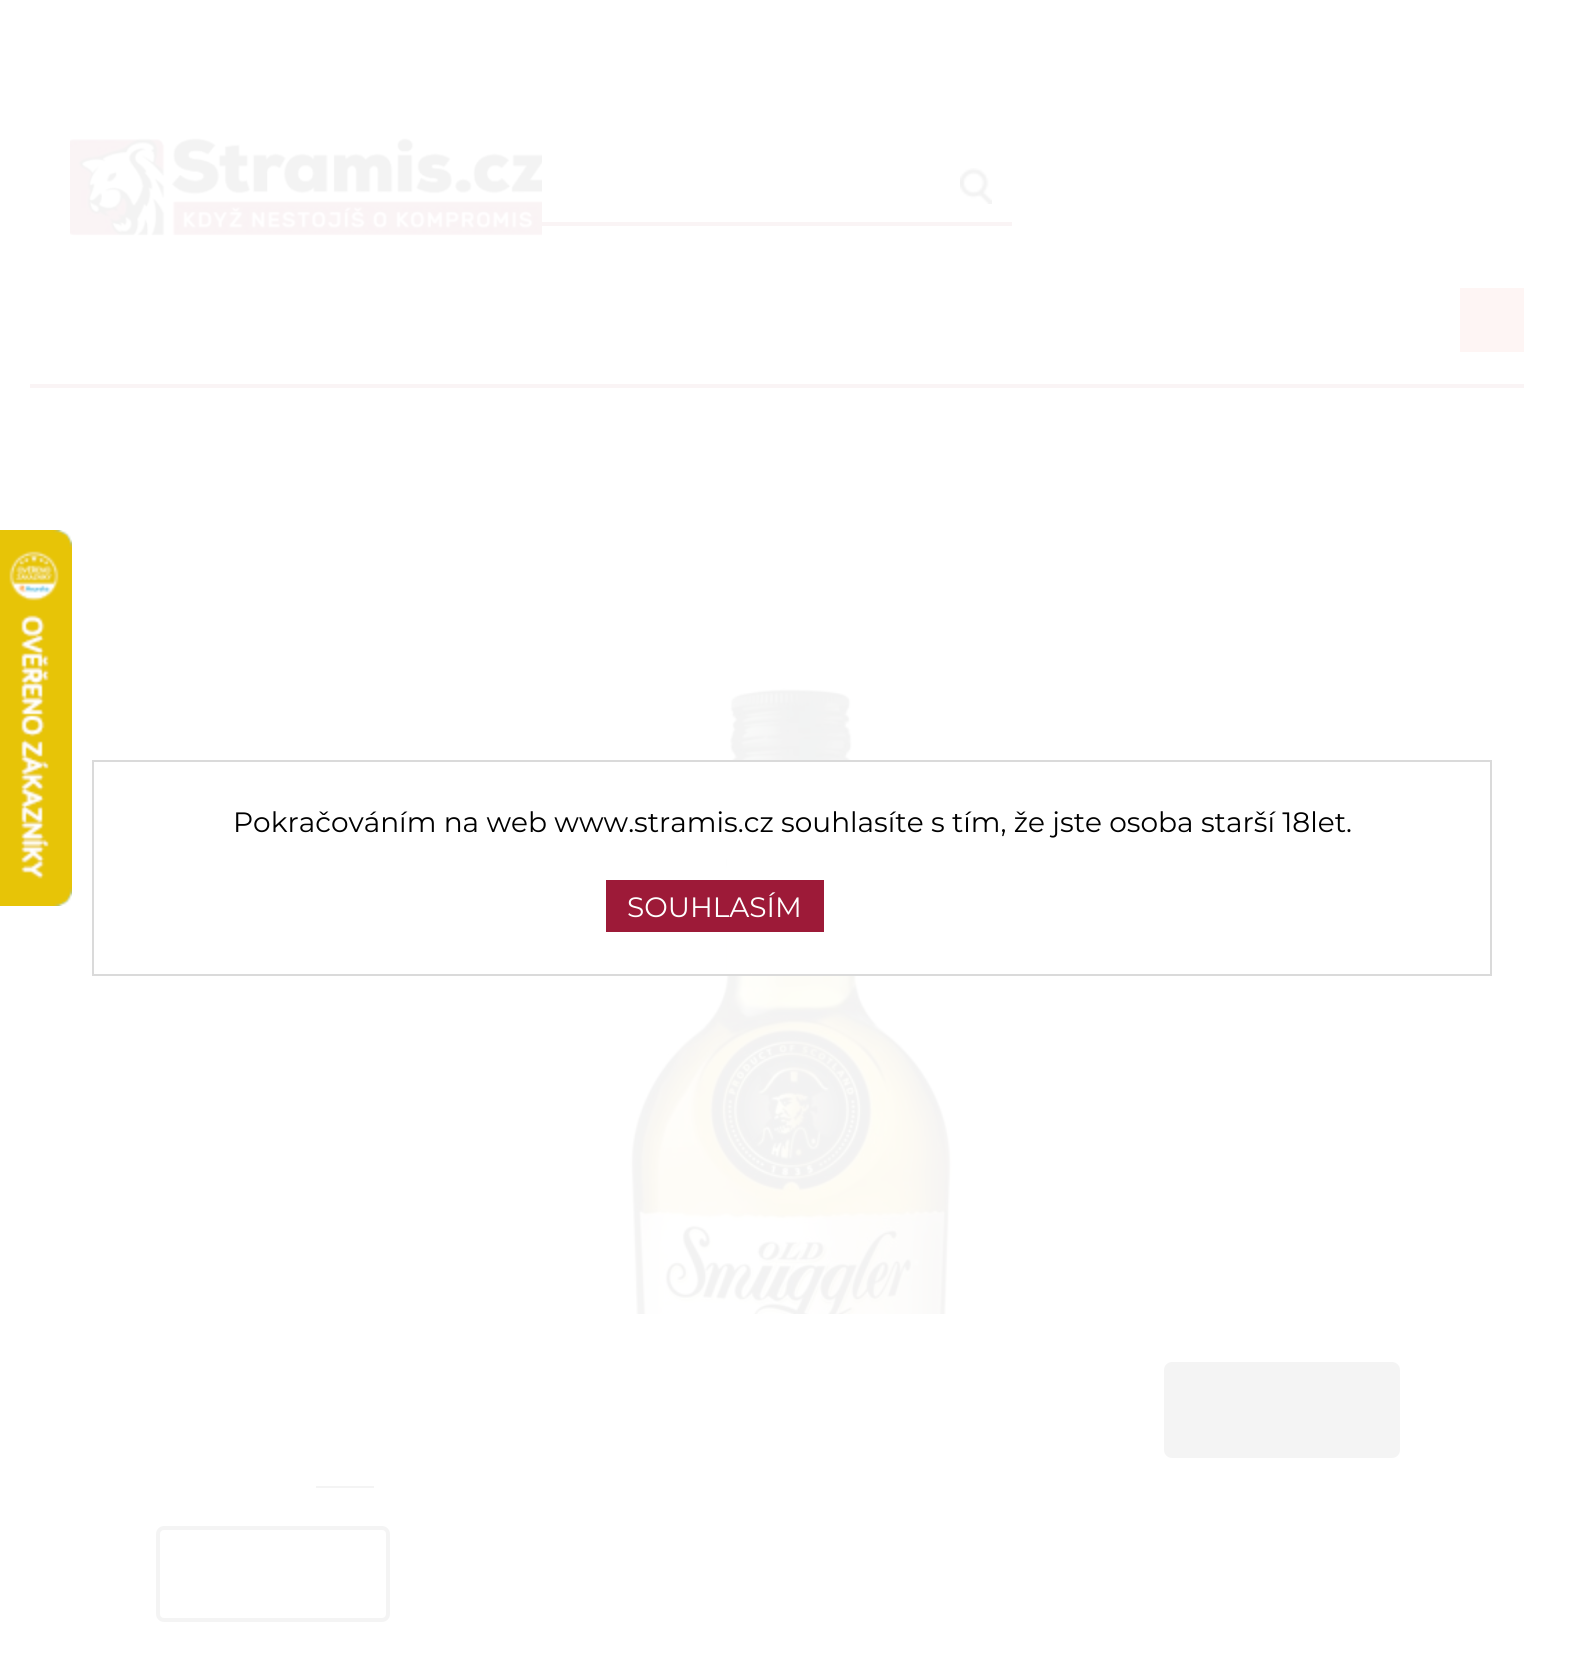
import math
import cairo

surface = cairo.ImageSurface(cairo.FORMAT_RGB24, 1584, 1670)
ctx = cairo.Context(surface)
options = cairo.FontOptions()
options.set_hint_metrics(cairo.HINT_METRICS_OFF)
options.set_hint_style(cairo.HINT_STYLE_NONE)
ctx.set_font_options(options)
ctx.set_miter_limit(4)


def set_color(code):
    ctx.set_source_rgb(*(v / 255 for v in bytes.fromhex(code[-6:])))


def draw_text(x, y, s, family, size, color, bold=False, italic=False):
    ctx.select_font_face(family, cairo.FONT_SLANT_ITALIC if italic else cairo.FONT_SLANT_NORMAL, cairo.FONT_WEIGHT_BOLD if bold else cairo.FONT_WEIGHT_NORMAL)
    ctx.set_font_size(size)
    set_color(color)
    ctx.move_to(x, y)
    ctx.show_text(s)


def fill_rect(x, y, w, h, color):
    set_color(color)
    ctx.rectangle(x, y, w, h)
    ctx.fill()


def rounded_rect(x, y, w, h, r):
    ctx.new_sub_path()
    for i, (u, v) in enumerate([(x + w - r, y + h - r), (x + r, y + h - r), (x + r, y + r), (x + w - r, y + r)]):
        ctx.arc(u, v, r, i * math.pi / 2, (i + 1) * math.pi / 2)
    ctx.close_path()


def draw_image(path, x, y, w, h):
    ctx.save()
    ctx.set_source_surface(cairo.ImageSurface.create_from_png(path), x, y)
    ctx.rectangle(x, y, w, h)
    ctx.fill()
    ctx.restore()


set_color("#ffffff")
ctx.paint()
draw_image("assets/img1.png", 70, 138, 472, 98)
draw_image("assets/img2.png", 960, 168, 32, 36)
fill_rect(542, 222, 470, 4, "#faf4f5")
fill_rect(1460, 288, 64, 64, "#fef5f4")
fill_rect(30, 384, 1494, 4, "#faf4f5")
draw_image("assets/img3.png", 625, 684, 329, 630)
draw_image("assets/img4.png", 0, 530, 72, 376)
fill_rect(727, 762, 129, 212, "#ffffff")
ctx.rectangle(93, 761, 1398, 214)
set_color("#dadada")
ctx.stroke()
draw_text(233, 832, "Pokračováním na web www.stramis.cz souhlasíte s tím, že jste osoba starší 18let.", "Montserrat", 28, "#000000")
fill_rect(606, 880, 218, 52, "#9d1a38")
draw_text(627, 917, "SOUHLASÍM", "Montserrat", 28, "#ffffff")
set_color("#f4f4f4")
rounded_rect(1164, 1362, 236, 96, 8)
ctx.fill()
fill_rect(316, 1486, 58, 2, "#f4f4f4")
rounded_rect(158, 1528, 230, 92, 6)
ctx.set_line_width(4)
ctx.stroke()
surface.write_to_png("output.png")
